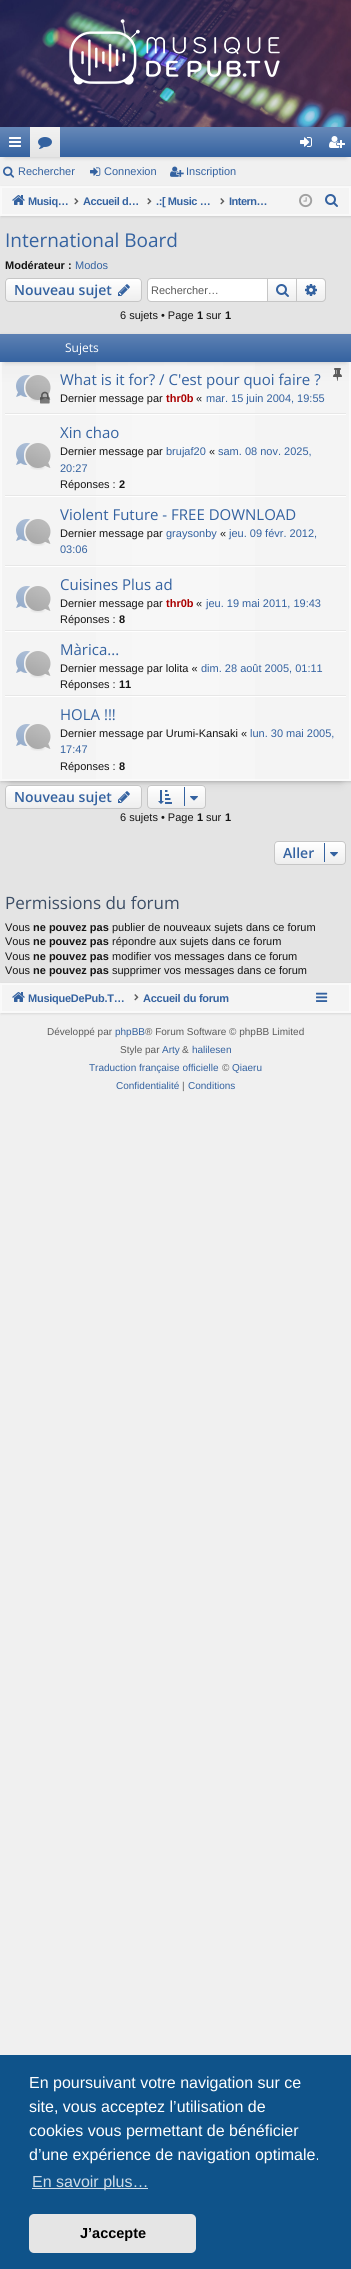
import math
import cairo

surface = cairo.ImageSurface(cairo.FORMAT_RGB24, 351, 2269)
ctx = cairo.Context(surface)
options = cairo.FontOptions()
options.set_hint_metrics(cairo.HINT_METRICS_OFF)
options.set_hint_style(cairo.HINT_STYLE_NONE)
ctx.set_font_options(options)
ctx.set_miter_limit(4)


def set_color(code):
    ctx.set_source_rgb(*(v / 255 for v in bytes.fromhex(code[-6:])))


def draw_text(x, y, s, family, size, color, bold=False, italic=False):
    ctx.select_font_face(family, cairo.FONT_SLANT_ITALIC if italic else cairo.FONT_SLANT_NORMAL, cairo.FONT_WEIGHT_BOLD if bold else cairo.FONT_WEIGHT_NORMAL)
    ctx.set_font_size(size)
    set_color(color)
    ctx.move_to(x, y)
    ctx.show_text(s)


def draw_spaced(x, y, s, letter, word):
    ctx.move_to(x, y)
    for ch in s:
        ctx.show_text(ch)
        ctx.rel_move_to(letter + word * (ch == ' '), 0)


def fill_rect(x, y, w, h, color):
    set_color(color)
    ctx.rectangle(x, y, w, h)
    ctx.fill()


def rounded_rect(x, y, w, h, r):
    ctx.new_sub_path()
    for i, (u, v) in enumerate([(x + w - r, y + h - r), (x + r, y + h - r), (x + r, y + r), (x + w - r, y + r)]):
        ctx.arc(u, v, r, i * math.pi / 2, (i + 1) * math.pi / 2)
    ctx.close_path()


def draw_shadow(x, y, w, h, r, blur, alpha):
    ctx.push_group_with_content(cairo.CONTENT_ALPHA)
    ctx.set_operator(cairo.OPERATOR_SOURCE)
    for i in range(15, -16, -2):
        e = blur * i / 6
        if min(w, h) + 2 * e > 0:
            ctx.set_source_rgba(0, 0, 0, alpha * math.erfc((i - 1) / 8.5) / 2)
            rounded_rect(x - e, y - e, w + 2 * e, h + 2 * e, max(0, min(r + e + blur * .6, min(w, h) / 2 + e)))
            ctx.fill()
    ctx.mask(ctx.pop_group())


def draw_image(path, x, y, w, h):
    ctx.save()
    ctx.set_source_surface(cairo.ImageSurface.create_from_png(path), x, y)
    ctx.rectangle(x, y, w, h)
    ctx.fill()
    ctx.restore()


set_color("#f0f0f0")
ctx.paint()
draw_image("assets/img1.png", 0, 0, 351, 127)
draw_image("assets/img2.png", 69, 19, 211, 66)
set_color("#000000")
draw_shadow(5, 137, 341, 20, 0, 2.5, 0.2)
gradient = cairo.LinearGradient(176, 127, 176, 157)
gradient.add_color_stop_rgba(0, 0.404, 0.537, 0.722, 1)
gradient.add_color_stop_rgba(1, 0.204, 0.384, 0.627, 1)
ctx.set_source(gradient)
ctx.rectangle(0, 127, 351, 30)
ctx.fill()
draw_image("assets/img3.png", 9, 137, 12, 10)
gradient = cairo.LinearGradient(45, 127, 45, 157)
gradient.add_color_stop_rgba(0, 0.949, 0.949, 0.949, 1)
gradient.add_color_stop_rgba(1, 0.894, 0.894, 0.894, 1)
ctx.set_source(gradient)
ctx.rectangle(30, 127, 30, 30)
ctx.fill()
draw_image("assets/img4.png", 38, 137, 14, 12)
draw_image("assets/img5.png", 300, 137, 12, 10)
draw_image("assets/img6.png", 329, 136, 16, 12)
draw_image("assets/img7.png", 3, 166, 12, 12)
draw_text(18, 175, "Rechercher", "Liberation Sans", 11, "#3462a0")
draw_image("assets/img8.png", 90, 167, 11, 9)
draw_text(104, 175, "Connexion", "Liberation Sans", 11, "#3462a0")
draw_image("assets/img9.png", 170, 166, 14, 11)
draw_text(186, 175, "Inscription", "Liberation Sans", 11, "#3462a0")
fill_rect(0, 216, 351, 767, "#e4e4e4")
set_color("#000000")
draw_shadow(1, 187, 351, 30, 0, 1, 0.1)
set_color("#f4f4f4")
ctx.rectangle(1.5, 187.5, 348, 27)
ctx.fill_preserve()
set_color("#fafafa")
ctx.set_line_width(1)
ctx.stroke()
ctx.rectangle(0.5, 186.5, 350, 29)
set_color("#f9f9f9")
ctx.stroke()
draw_image("assets/img10.png", 12, 195, 13, 10)
ctx.select_font_face("Liberation Sans", cairo.FONT_SLANT_NORMAL, cairo.FONT_WEIGHT_BOLD)
set_color("#3462a0")
draw_spaced(28, 205, "Musiq…", -0.4, 0)
draw_image("assets/img11.png", 74, 198, 5, 7)
draw_spaced(83, 205, "Accueil d…", -0.4, 0)
draw_image("assets/img11.png", 147, 198, 5, 7)
draw_spaced(156, 205, ".:[ Music …", -0.4, 0)
draw_image("assets/img11.png", 220, 198, 5, 7)
draw_spaced(229, 205, "Intern…", -0.5, 0)
draw_image("assets/img12.png", 299, 193, 14, 15)
draw_image("assets/img13.png", 325, 194, 13, 13)
draw_text(5, 247, "International Board", "Open Sans", 19, "#3462a0")
draw_text(5, 269, "Modérateur :", "Liberation Sans", 11, "#141414", bold=True)
draw_text(75, 269, "Modos", "Liberation Sans", 11, "#3462a0")
set_color("#eeeeee")
rounded_rect(5, 278, 137, 24, 4)
ctx.fill()
ctx.save()
rounded_rect(5, 278, 137, 24, 4)
ctx.clip()
gradient = cairo.LinearGradient(74, 279, 74, 301)
gradient.add_color_stop_rgba(0, 1, 1, 1, 1)
gradient.add_color_stop_rgba(1, 1, 1, 1, 0)
ctx.set_source(gradient)
ctx.rectangle(5, 279, 137, 22)
ctx.fill()
ctx.restore()
rounded_rect(5.5, 278.5, 136, 23, 3.5)
set_color("#c6c6c6")
ctx.stroke()
draw_text(14, 295, "Nouveau sujet", "Open Sans SemiBold", 14, "#3462a0")
draw_image("assets/img14.png", 118, 284, 12, 12)
set_color("#ffffff")
ctx.new_path()
ctx.move_to(151, 279)
ctx.line_to(267, 279)
ctx.line_to(267, 301)
ctx.line_to(151, 301)
ctx.curve_to(149.5, 301, 148, 299.5, 148, 298)
ctx.line_to(148, 282)
ctx.curve_to(148, 280.5, 149.5, 279, 151, 279)
ctx.close_path()
ctx.fill()
set_color("#c6c6c6")
ctx.set_fill_rule(cairo.FILL_RULE_EVEN_ODD)
ctx.new_path()
ctx.move_to(151, 278)
ctx.line_to(267, 278)
ctx.line_to(267, 302)
ctx.line_to(151, 302)
ctx.curve_to(149, 302, 147, 300, 147, 298)
ctx.line_to(147, 282)
ctx.curve_to(147, 280, 149, 278, 151, 278)
ctx.close_path()
ctx.move_to(151, 279)
ctx.line_to(267, 279)
ctx.line_to(267, 301)
ctx.line_to(151, 301)
ctx.curve_to(149, 301, 148, 300, 148, 298)
ctx.line_to(148, 282)
ctx.curve_to(148, 280, 149, 279, 151, 279)
ctx.close_path()
ctx.fill()
draw_text(151, 294, "Rechercher…", "Liberation Sans", 11, "#5b5b5b")
gradient = cairo.LinearGradient(282, 279, 282, 301)
gradient.add_color_stop_rgba(0, 1, 1, 1, 1)
gradient.add_color_stop_rgba(1, 0.933, 0.933, 0.933, 1)
ctx.set_source(gradient)
ctx.rectangle(268, 279, 28, 22)
ctx.fill()
ctx.rectangle(267.5, 278.5, 29, 23)
set_color("#c6c6c6")
ctx.stroke()
draw_image("assets/img15.png", 276, 284, 13, 13)
set_color("#eeeeee")
ctx.new_path()
ctx.move_to(297, 279)
ctx.line_to(322, 279)
ctx.curve_to(323.5, 279, 325, 280.5, 325, 282)
ctx.line_to(325, 298)
ctx.curve_to(325, 299.5, 323.5, 301, 322, 301)
ctx.line_to(297, 301)
ctx.close_path()
ctx.fill()
gradient = cairo.LinearGradient(311, 279, 311, 301)
gradient.add_color_stop_rgba(0, 1, 1, 1, 1)
gradient.add_color_stop_rgba(1, 1, 1, 1, 0)
ctx.set_source(gradient)
ctx.new_path()
ctx.move_to(297, 279)
ctx.line_to(322, 279)
ctx.curve_to(323.5, 279, 325, 280.5, 325, 282)
ctx.line_to(325, 298)
ctx.curve_to(325, 299.5, 323.5, 301, 322, 301)
ctx.line_to(297, 301)
ctx.close_path()
ctx.fill()
set_color("#c6c6c6")
ctx.new_path()
ctx.move_to(297, 278)
ctx.line_to(322, 278)
ctx.curve_to(324, 278, 326, 280, 326, 282)
ctx.line_to(326, 298)
ctx.curve_to(326, 300, 324, 302, 322, 302)
ctx.line_to(297, 302)
ctx.close_path()
ctx.move_to(297, 279)
ctx.line_to(322, 279)
ctx.curve_to(323.5, 279, 325, 280.5, 325, 282)
ctx.line_to(325, 298)
ctx.curve_to(325, 299.5, 323.5, 301, 322, 301)
ctx.line_to(297, 301)
ctx.close_path()
ctx.fill()
draw_image("assets/img16.png", 305, 284, 12, 12)
draw_text(120, 319, "6 sujets • Page", "Liberation Sans", 11, "#141414")
draw_text(197, 319, "1", "Liberation Sans", 11, "#141414", bold=True)
draw_text(206, 319, "sur", "Liberation Sans", 11, "#141414")
draw_text(225, 319, "1", "Liberation Sans", 11, "#141414", bold=True)
set_color("#000000")
draw_shadow(10, 354, 331, 427, 0, 5, 0.2)
draw_shadow(1, 335, 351, 447, 0, 1.5, 0.15)
gradient = cairo.LinearGradient(175, 335, 176, 780)
gradient.add_color_stop_rgba(0, 0.925, 0.925, 0.925, 1)
gradient.add_color_stop_rgba(0.02, 0.918, 0.918, 0.918, 1)
gradient.add_color_stop_rgba(0.11, 0.957, 0.957, 0.957, 1)
ctx.set_source(gradient)
ctx.rectangle(1, 362, 349, 418)
ctx.fill()
gradient = cairo.LinearGradient(1, 558, 350, 558)
gradient.add_color_stop_rgba(0, 1, 1, 1, 0)
gradient.add_color_stop_rgba(0.5, 1, 1, 1, 0.3)
gradient.add_color_stop_rgba(1, 1, 1, 1, 0)
ctx.set_source(gradient)
ctx.rectangle(96, 362, 159, 418)
ctx.fill()
ctx.rectangle(1.5, 335.5, 348, 444)
ctx.set_source_rgba(1, 1, 1, 0.5)
ctx.stroke()
ctx.rectangle(0.5, 334.5, 350, 446)
set_color("#f9f9f9")
ctx.stroke()
set_color("#000000")
draw_shadow(5, 344, 341, 18, 0, 2.5, 0.2)
gradient = cairo.LinearGradient(176, 334, 176, 362)
gradient.add_color_stop_rgba(0, 0.365, 0.506, 0.702, 1)
gradient.add_color_stop_rgba(1, 0.204, 0.384, 0.627, 1)
ctx.set_source(gradient)
ctx.rectangle(0, 334, 351, 28)
ctx.fill()
draw_text(65, 352, "Sujets", "Open Sans", 12, "#ffffff")
fill_rect(5, 413, 341, 1, "#e7e7e7")
draw_image("assets/img17.png", 16, 375, 35, 29)
draw_text(60, 385, "What is it for? / C'est pour quoi faire ?", "Open Sans", 15, "#3462a0")
draw_image("assets/img18.png", 333, 368, 9, 13)
draw_text(60, 402, "Dernier message par", "Liberation Sans", 11, "#141414")
draw_text(166, 402, "thr0b", "Liberation Sans", 11, "#aa0000", bold=True)
draw_text(196, 402, "«", "Liberation Sans", 11, "#141414")
draw_text(206, 402, "mar. 15 juin 2004, 19:55", "Liberation Sans", 11, "#3462a0")
fill_rect(5, 414, 341, 1, "#ffffff")
fill_rect(5, 495, 341, 1, "#e7e7e7")
draw_image("assets/img19.png", 16, 443, 35, 27)
draw_text(60, 438, "Xin chao", "Open Sans", 15, "#3462a0")
draw_text(60, 455, "Dernier message par", "Liberation Sans", 11, "#141414")
draw_text(166, 455, "brujaf20", "Liberation Sans", 11, "#3462a0")
draw_text(209, 455, "«", "Liberation Sans", 11, "#141414")
draw_text(218, 455, "sam. 08 nov. 2025,", "Liberation Sans", 11, "#3462a0")
draw_text(60, 472, "20:27", "Liberation Sans", 11, "#3462a0")
draw_text(60, 488, "Réponses :", "Liberation Sans", 11, "#141414")
draw_text(119, 488, "2", "Liberation Sans", 11, "#141414", bold=True)
fill_rect(5, 496, 341, 1, "#ffffff")
fill_rect(5, 565, 341, 1, "#e7e7e7")
draw_image("assets/img19.png", 16, 519, 35, 27)
draw_text(60, 520, "Violent Future - FREE DOWNLOAD", "Open Sans", 15, "#3462a0")
draw_text(60, 537, "Dernier message par", "Liberation Sans", 11, "#141414")
draw_text(166, 537, "graysonby", "Liberation Sans", 11, "#3462a0")
draw_text(220, 537, "«", "Liberation Sans", 11, "#141414")
draw_text(229, 537, "jeu. 09 févr. 2012,", "Liberation Sans", 11, "#3462a0")
draw_text(60, 553, "03:06", "Liberation Sans", 11, "#3462a0")
fill_rect(5, 566, 341, 1, "#ffffff")
fill_rect(5, 630, 341, 1, "#e7e7e7")
draw_image("assets/img19.png", 16, 586, 35, 27)
draw_text(60, 590, "Cuisines Plus ad", "Open Sans", 15, "#3462a0")
draw_text(60, 607, "Dernier message par", "Liberation Sans", 11, "#141414")
draw_text(166, 607, "thr0b", "Liberation Sans", 11, "#aa0000", bold=True)
draw_text(196, 607, "«", "Liberation Sans", 11, "#141414")
draw_text(206, 607, "jeu. 19 mai 2011, 19:43", "Liberation Sans", 11, "#3462a0")
draw_text(60, 623, "Réponses :", "Liberation Sans", 11, "#141414")
draw_text(119, 623, "8", "Liberation Sans", 11, "#141414", bold=True)
fill_rect(5, 631, 341, 1, "#ffffff")
fill_rect(5, 695, 341, 1, "#e7e7e7")
draw_image("assets/img19.png", 16, 651, 35, 27)
draw_text(60, 655, "Màrica...", "Open Sans", 15, "#3462a0")
draw_text(60, 672, "Dernier message par lolita «", "Liberation Sans", 11, "#141414")
draw_text(201, 672, "dim. 28 août 2005, 01:11", "Liberation Sans", 11, "#3462a0")
draw_text(60, 688, "Réponses :", "Liberation Sans", 11, "#141414")
draw_text(119, 688, "11", "Liberation Sans", 11, "#141414", bold=True)
fill_rect(5, 696, 341, 1, "#ffffff")
draw_image("assets/img19.png", 16, 724, 35, 27)
draw_text(60, 720, "HOLA !!!", "Open Sans", 15, "#3462a0")
draw_text(60, 737, "Dernier message par Urumi-Kansaki «", "Liberation Sans", 11, "#141414")
draw_text(250, 737, "lun. 30 mai 2005,", "Liberation Sans", 11, "#3462a0")
draw_text(60, 753, "17:47", "Liberation Sans", 11, "#3462a0")
draw_text(60, 770, "Réponses :", "Liberation Sans", 11, "#141414")
draw_text(119, 770, "8", "Liberation Sans", 11, "#141414", bold=True)
set_color("#eeeeee")
rounded_rect(5, 785, 137, 24, 4)
ctx.fill()
ctx.save()
ctx.set_fill_rule(cairo.FILL_RULE_WINDING)
rounded_rect(5, 785, 137, 24, 4)
ctx.clip()
gradient = cairo.LinearGradient(74, 786, 74, 808)
gradient.add_color_stop_rgba(0, 1, 1, 1, 1)
gradient.add_color_stop_rgba(1, 1, 1, 1, 0)
ctx.set_source(gradient)
ctx.rectangle(5, 786, 137, 22)
ctx.fill()
ctx.restore()
rounded_rect(5.5, 785.5, 136, 23, 3.5)
set_color("#c6c6c6")
ctx.stroke()
draw_text(14, 802, "Nouveau sujet", "Open Sans SemiBold", 14, "#3462a0")
draw_image("assets/img14.png", 118, 791, 12, 12)
set_color("#eeeeee")
rounded_rect(147, 785, 59, 24, 4)
ctx.fill()
ctx.save()
ctx.set_fill_rule(cairo.FILL_RULE_WINDING)
rounded_rect(147, 785, 59, 24, 4)
ctx.clip()
gradient = cairo.LinearGradient(177, 786, 177, 808)
gradient.add_color_stop_rgba(0, 1, 1, 1, 1)
gradient.add_color_stop_rgba(1, 1, 1, 1, 0)
ctx.set_source(gradient)
ctx.rectangle(147, 786, 59, 22)
ctx.fill()
ctx.restore()
rounded_rect(147.5, 785.5, 58, 23, 3.5)
set_color("#c6c6c6")
ctx.stroke()
draw_image("assets/img20.png", 158, 790, 14, 14)
fill_rect(184, 787, 1, 19, "#3462a0")
draw_image("assets/img21.png", 190, 796, 8, 5)
draw_text(120, 821, "6 sujets • Page", "Liberation Sans", 11, "#141414")
draw_text(197, 821, "1", "Liberation Sans", 11, "#141414", bold=True)
draw_text(206, 821, "sur", "Liberation Sans", 11, "#141414")
draw_text(225, 821, "1", "Liberation Sans", 11, "#141414", bold=True)
set_color("#eeeeee")
rounded_rect(274, 841, 72, 24, 4)
ctx.fill()
ctx.save()
ctx.set_fill_rule(cairo.FILL_RULE_WINDING)
rounded_rect(274, 841, 72, 24, 4)
ctx.clip()
gradient = cairo.LinearGradient(310, 842, 310, 864)
gradient.add_color_stop_rgba(0, 1, 1, 1, 1)
gradient.add_color_stop_rgba(1, 1, 1, 1, 0)
ctx.set_source(gradient)
ctx.rectangle(274, 842, 72, 22)
ctx.fill()
ctx.restore()
rounded_rect(274.5, 841.5, 71, 23, 3.5)
set_color("#c6c6c6")
ctx.stroke()
draw_text(283, 858, "Aller", "Open Sans SemiBold", 14, "#3462a0")
fill_rect(324, 843, 1, 19, "#3462a0")
draw_image("assets/img21.png", 330, 852, 8, 5)
draw_text(5, 909, "Permissions du forum", "Open Sans", 17, "#3c4d65")
draw_text(5, 931, "Vous", "Liberation Sans", 11, "#141414")
draw_text(33, 931, "ne pouvez pas", "Liberation Sans", 11, "#141414", bold=True)
draw_text(112, 931, "publier de nouveaux sujets dans ce forum", "Liberation Sans", 11, "#141414")
draw_text(5, 945, "Vous", "Liberation Sans", 11, "#141414")
draw_text(33, 945, "ne pouvez pas", "Liberation Sans", 11, "#141414", bold=True)
draw_text(112, 945, "répondre aux sujets dans ce forum", "Liberation Sans", 11, "#141414")
draw_text(5, 960, "Vous", "Liberation Sans", 11, "#141414")
draw_text(33, 960, "ne pouvez pas", "Liberation Sans", 11, "#141414", bold=True)
draw_text(112, 960, "modifier vos messages dans ce forum", "Liberation Sans", 11, "#141414")
draw_text(5, 974, "Vous", "Liberation Sans", 11, "#141414")
draw_text(33, 974, "ne pouvez pas", "Liberation Sans", 11, "#141414", bold=True)
draw_text(112, 974, "supprimer vos messages dans ce forum", "Liberation Sans", 11, "#141414")
set_color("#000000")
draw_shadow(1, 984, 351, 30, 0, 1, 0.1)
set_color("#f4f4f4")
ctx.rectangle(1.5, 984.5, 348, 27)
ctx.fill_preserve()
set_color("#fafafa")
ctx.stroke()
ctx.rectangle(0.5, 983.5, 350, 29)
set_color("#f9f9f9")
ctx.stroke()
draw_image("assets/img10.png", 12, 992, 13, 10)
ctx.select_font_face("Liberation Sans", cairo.FONT_SLANT_NORMAL, cairo.FONT_WEIGHT_BOLD)
set_color("#3462a0")
draw_spaced(28, 1002, "MusiqueDePub.T…", -0.25, 0)
draw_image("assets/img11.png", 134, 994, 5, 7)
draw_spaced(143, 1002, "Accueil du forum", -0.25, 0)
draw_image("assets/img22.png", 316, 992, 12, 10)
draw_text(47, 1035, "Développé par", "Liberation Sans", 10, "#5b5b5b")
draw_text(115, 1035, "phpBB", "Liberation Sans", 10, "#3462a0")
draw_text(145, 1035, "® Forum Software © phpBB Limited", "Liberation Sans", 10, "#5b5b5b")
draw_text(120, 1053, "Style par", "Liberation Sans", 10, "#5b5b5b")
draw_text(162, 1053, "Arty", "Liberation Sans", 10, "#3462a0")
draw_text(182, 1053, "&", "Liberation Sans", 10, "#5b5b5b")
draw_text(192, 1053, "halilesen", "Liberation Sans", 10, "#3462a0")
draw_text(89, 1071, "Traduction française officielle", "Liberation Sans", 10, "#3462a0")
draw_text(222, 1071, "©", "Liberation Sans", 10, "#5b5b5b")
draw_text(232, 1071, "Qiaeru", "Liberation Sans", 10, "#3462a0")
draw_text(116, 1089, "Confidentialité", "Liberation Sans", 10, "#3462a0")
draw_text(182, 1089, "|", "Liberation Sans", 10, "#5b5b5b")
draw_text(188, 1089, "Conditions", "Liberation Sans", 10, "#3462a0")
fill_rect(0, 2055, 351, 214, "#0f538a")
draw_text(29, 2088, "En poursuivant votre navigation sur ce", "Liberation Sans", 16, "#ffffff")
draw_text(29, 2112, "site, vous acceptez l’utilisation de", "Liberation Sans", 16, "#ffffff")
draw_text(29, 2136, "cookies vous permettant de bénéficier", "Liberation Sans", 16, "#ffffff")
draw_text(29, 2160, "d’une expérience de navigation optimale.", "Liberation Sans", 16, "#ffffff")
fill_rect(32, 2188, 116, 1, "#cfdde8")
draw_text(32, 2187, "En savoir plus…", "Liberation Sans", 16, "#cfdde8")
set_color("#e5e5e5")
rounded_rect(29, 2214, 167, 39, 5)
ctx.fill()
draw_text(80, 2238, "J’accepte", "Liberation Sans", 14.5, "#000000", bold=True)
surface.write_to_png("output.png")
